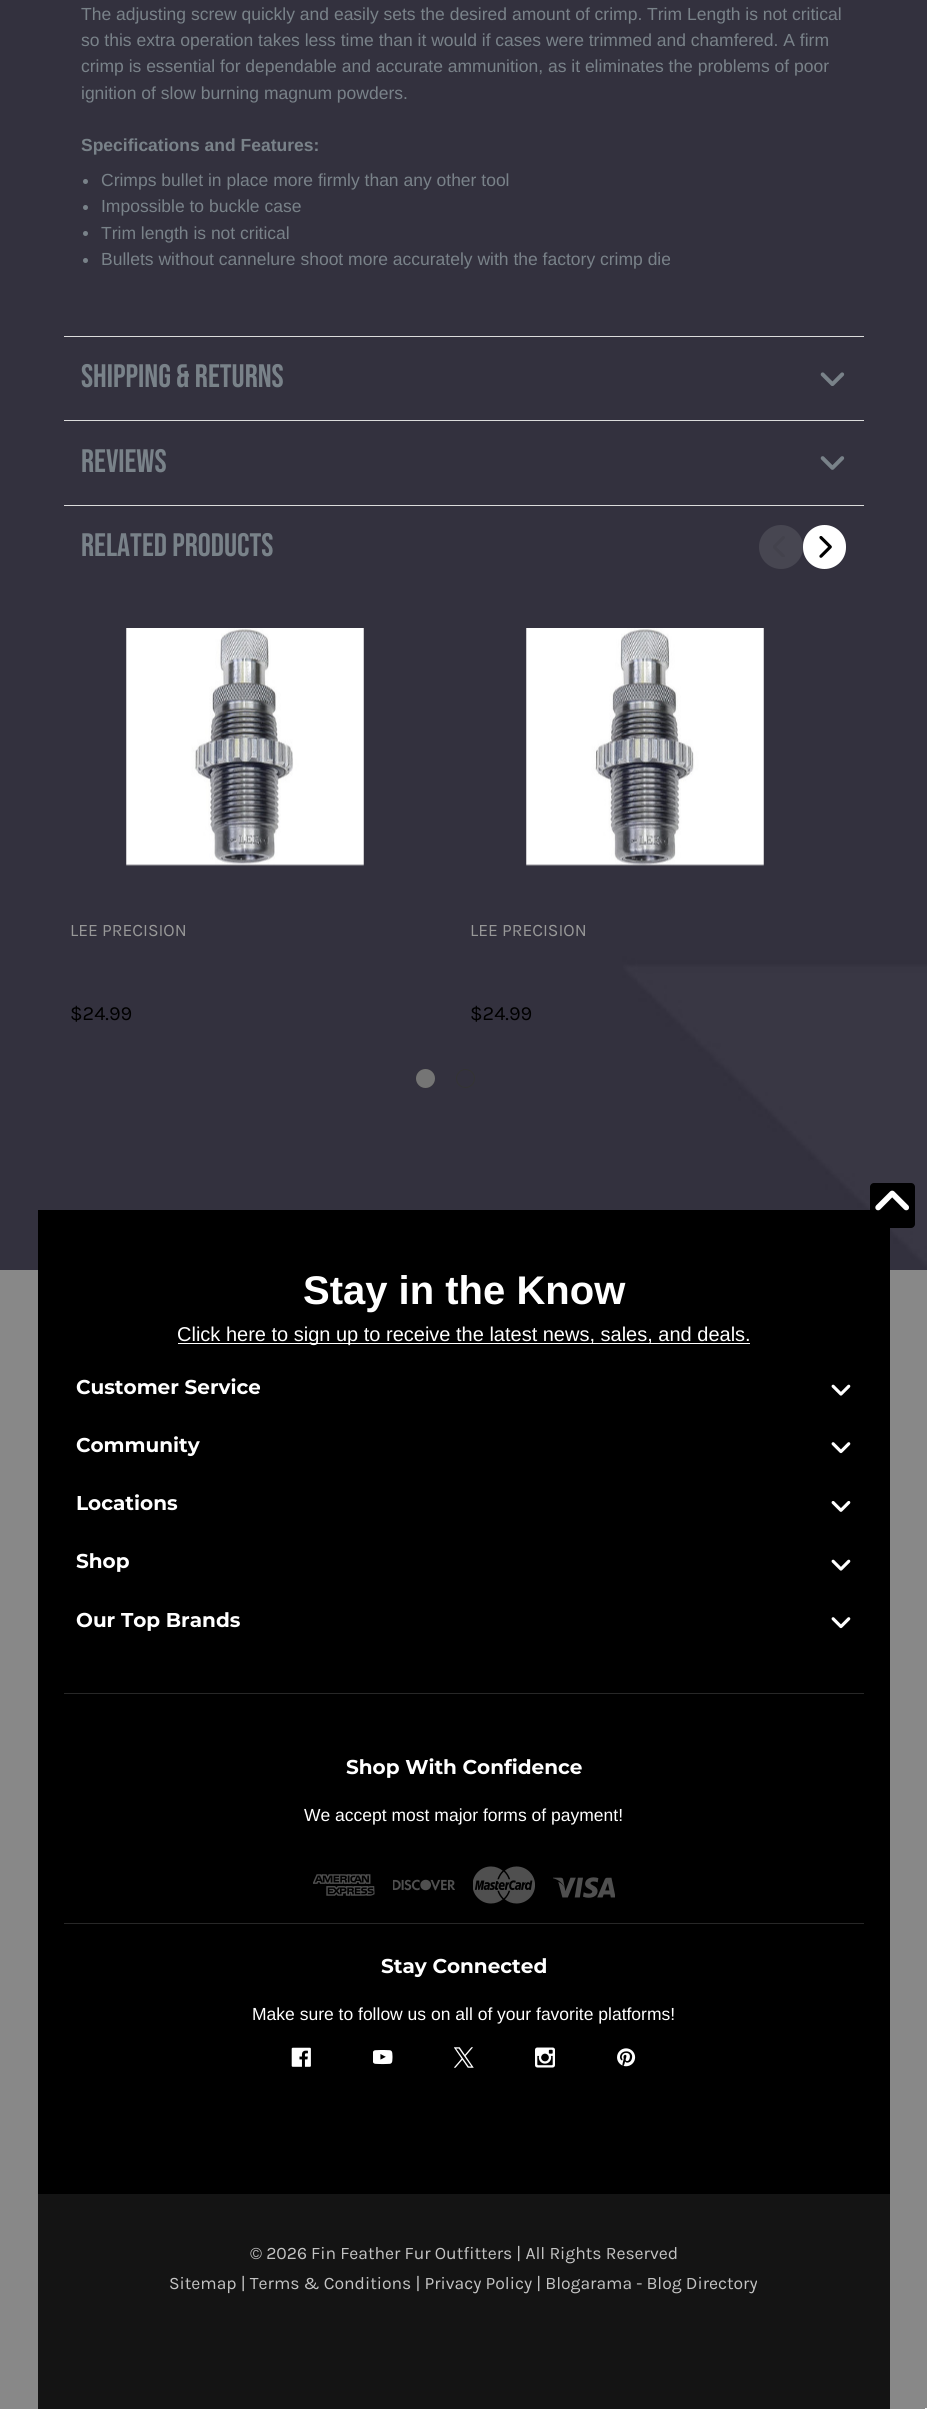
import math
import cairo

surface = cairo.ImageSurface(cairo.FORMAT_RGB24, 927, 2409)
ctx = cairo.Context(surface)
options = cairo.FontOptions()
options.set_hint_metrics(cairo.HINT_METRICS_OFF)
options.set_hint_style(cairo.HINT_STYLE_NONE)
ctx.set_font_options(options)
ctx.set_miter_limit(4)


def set_color(code):
    ctx.set_source_rgb(*(v / 255 for v in bytes.fromhex(code[-6:])))


def draw_text(x, y, s, family, size, color, bold=False, italic=False):
    ctx.select_font_face(family, cairo.FONT_SLANT_ITALIC if italic else cairo.FONT_SLANT_NORMAL, cairo.FONT_WEIGHT_BOLD if bold else cairo.FONT_WEIGHT_NORMAL)
    ctx.set_font_size(size)
    set_color(color)
    ctx.move_to(x, y)
    ctx.show_text(s)


def fill_rect(x, y, w, h, color):
    set_color(color)
    ctx.rectangle(x, y, w, h)
    ctx.fill()


def rounded_rect(x, y, w, h, r):
    ctx.new_sub_path()
    for i, (u, v) in enumerate([(x + w - r, y + h - r), (x + r, y + h - r), (x + r, y + r), (x + w - r, y + r)]):
        ctx.arc(u, v, r, i * math.pi / 2, (i + 1) * math.pi / 2)
    ctx.close_path()


def draw_image(path, x, y, w, h):
    ctx.save()
    ctx.set_source_surface(cairo.ImageSurface.create_from_png(path), x, y)
    ctx.rectangle(x, y, w, h)
    ctx.fill()
    ctx.restore()


set_color("#888888")
ctx.paint()
draw_image("assets/img1.png", 0, 0, 927, 1270)
draw_text(81, 20, "The adjusting screw quickly and easily sets the desired amount of crimp. Trim Length is not critical", "Liberation Sans", 17.5, "#798289")
draw_text(81, 46, "so this extra operation takes less time than it would if cases were trimmed and chamfered. A firm", "Liberation Sans", 17.5, "#798289")
draw_text(81, 72, "crimp is essential for dependable and accurate ammunition, as it eliminates the problems of poor", "Liberation Sans", 17.5, "#798289")
draw_text(81, 99, "ignition of slow burning magnum powders.", "Liberation Sans", 17.5, "#798289")
draw_text(81, 151, "Specifications and Features:", "Liberation Sans", 17.5, "#798289", bold=True)
ctx.new_path()
ctx.arc(85.5, 181.5, 2.5, 0, 2 * math.pi)
ctx.fill()
draw_text(101, 186, "Crimps bullet in place more firmly than any other tool", "Liberation Sans", 17.5, "#798289")
ctx.new_path()
ctx.arc(85.5, 207.5, 2.5, 0, 2 * math.pi)
ctx.fill()
draw_text(101, 212, "Impossible to buckle case", "Liberation Sans", 17.5, "#798289")
ctx.new_path()
ctx.arc(85.5, 233.5, 2.5, 0, 2 * math.pi)
ctx.fill()
draw_text(101, 239, "Trim length is not critical", "Liberation Sans", 17.5, "#798289")
ctx.new_path()
ctx.arc(85.5, 260.5, 2.5, 0, 2 * math.pi)
ctx.fill()
draw_text(101, 265, "Bullets without cannelure shoot more accurately with the factory crimp die", "Liberation Sans", 17.5, "#798289")
fill_rect(64, 336, 800, 1, "#dcdcdc")
draw_text(81, 387, "SHIPPING & RETURNS", "Bebas Neue", 32.5, "#798289")
draw_image("assets/img2.png", 820, 372, 25, 14)
fill_rect(64, 420, 800, 1, "#dcdcdc")
draw_text(81, 472, "REVIEWS", "Bebas Neue", 32.5, "#798289")
draw_image("assets/img3.png", 820, 456, 25, 14)
fill_rect(64, 505, 800, 1, "#dcdcdc")
draw_text(81, 556, "RELATED PRODUCTS", "Bebas Neue", 32.5, "#798289")
set_color("#474651")
ctx.new_path()
ctx.arc(781, 547, 22, 0, 2 * math.pi)
ctx.fill()
draw_image("assets/img4.png", 773, 536, 12, 21)
set_color("#ffffff")
rounded_rect(803, 525, 43, 44, 21.5)
ctx.fill()
draw_image("assets/img5.png", 819, 536, 13, 22)
draw_image("assets/img6.png", 126, 628, 238, 238)
draw_text(70, 936, "LEE PRECISION", "Karla", 17.5, "#989898")
draw_text(70, 1020, "$24.99", "Karla", 20, "#000000")
draw_image("assets/img7.png", 526, 628, 238, 238)
draw_text(470, 936, "LEE PRECISION", "Karla", 17.5, "#989898")
draw_text(470, 1020, "$24.99", "Karla", 20, "#000000")
ctx.new_path()
ctx.arc(425.5, 1078.5, 9, 0, 2 * math.pi)
set_color("#333333")
ctx.set_line_width(1)
ctx.stroke()
set_color("#757575")
ctx.arc(425.5, 1078.5, 9.5, 0, 2 * math.pi)
ctx.fill()
ctx.arc(465.5, 1078.5, 9, 0, 2 * math.pi)
set_color("#333333")
ctx.stroke()
fill_rect(38, 1210, 852, 984, "#000000")
rounded_rect(870, 1183, 45, 45, 4)
ctx.fill()
draw_image("assets/img8.png", 875, 1190, 34, 21)
draw_text(303, 1304, "Stay in the Know", "Liberation Sans", 40, "#ffffff", bold=True)
fill_rect(178, 1343, 572, 1, "#ffffff")
draw_text(177, 1341, "Click here to sign up to receive the latest news, sales, and deals.", "Liberation Sans", 20, "#ffffff")
fill_rect(64, 1693, 800, 1, "#272727")
draw_text(76, 1394, "Customer Service", "Montserrat", 20, "#ffffff", bold=True)
draw_image("assets/img9.png", 831, 1384, 20, 12)
draw_text(76, 1452, "Community", "Montserrat", 20, "#ffffff", bold=True)
draw_image("assets/img10.png", 831, 1442, 20, 12)
draw_text(76, 1510, "Locations", "Montserrat", 20, "#ffffff", bold=True)
draw_image("assets/img11.png", 831, 1501, 20, 11)
draw_text(76, 1568, "Shop", "Montserrat", 20, "#ffffff", bold=True)
draw_image("assets/img9.png", 831, 1559, 20, 12)
draw_text(76, 1627, "Our Top Brands", "Montserrat", 20, "#ffffff", bold=True)
draw_image("assets/img10.png", 831, 1617, 20, 12)
fill_rect(64, 1923, 800, 1, "#272727")
draw_text(346, 1774, "Shop With Confidence", "Montserrat", 20, "#ffffff", bold=True)
draw_text(304, 1821, "We accept most major forms of payment!", "Liberation Sans", 17.5, "#ffffff")
draw_image("assets/img12.png", 313, 1874, 62, 22)
draw_image("assets/img13.png", 393, 1879, 62, 12)
draw_image("assets/img14.png", 473, 1866, 62, 38)
draw_image("assets/img15.png", 553, 1877, 62, 21)
draw_text(381, 1973, "Stay Connected", "Montserrat", 20, "#ffffff", bold=True)
draw_text(252, 2020, "Make sure to follow us on all of your favorite platforms!", "Liberation Sans", 17.5, "#ffffff")
draw_image("assets/img16.png", 291, 2047, 20, 20)
draw_image("assets/img17.png", 373, 2050, 20, 15)
draw_image("assets/img18.png", 454, 2047, 20, 21)
draw_image("assets/img19.png", 535, 2047, 20, 21)
draw_image("assets/img20.png", 617, 2048, 19, 19)
fill_rect(38, 2194, 852, 215, "#141414")
draw_text(250, 2259, "© 2026 Fin Feather Fur Outfitters | All Rights Reserved", "Karla", 17.5, "#c4c4c4")
draw_text(169, 2289, "Sitemap | Terms & Conditions | Privacy Policy | Blogarama - Blog Directory", "Karla", 17.5, "#c4c4c4")
fill_rect(925, 2408, 2, 1, "#f5f5f5")
surface.write_to_png("output.png")
